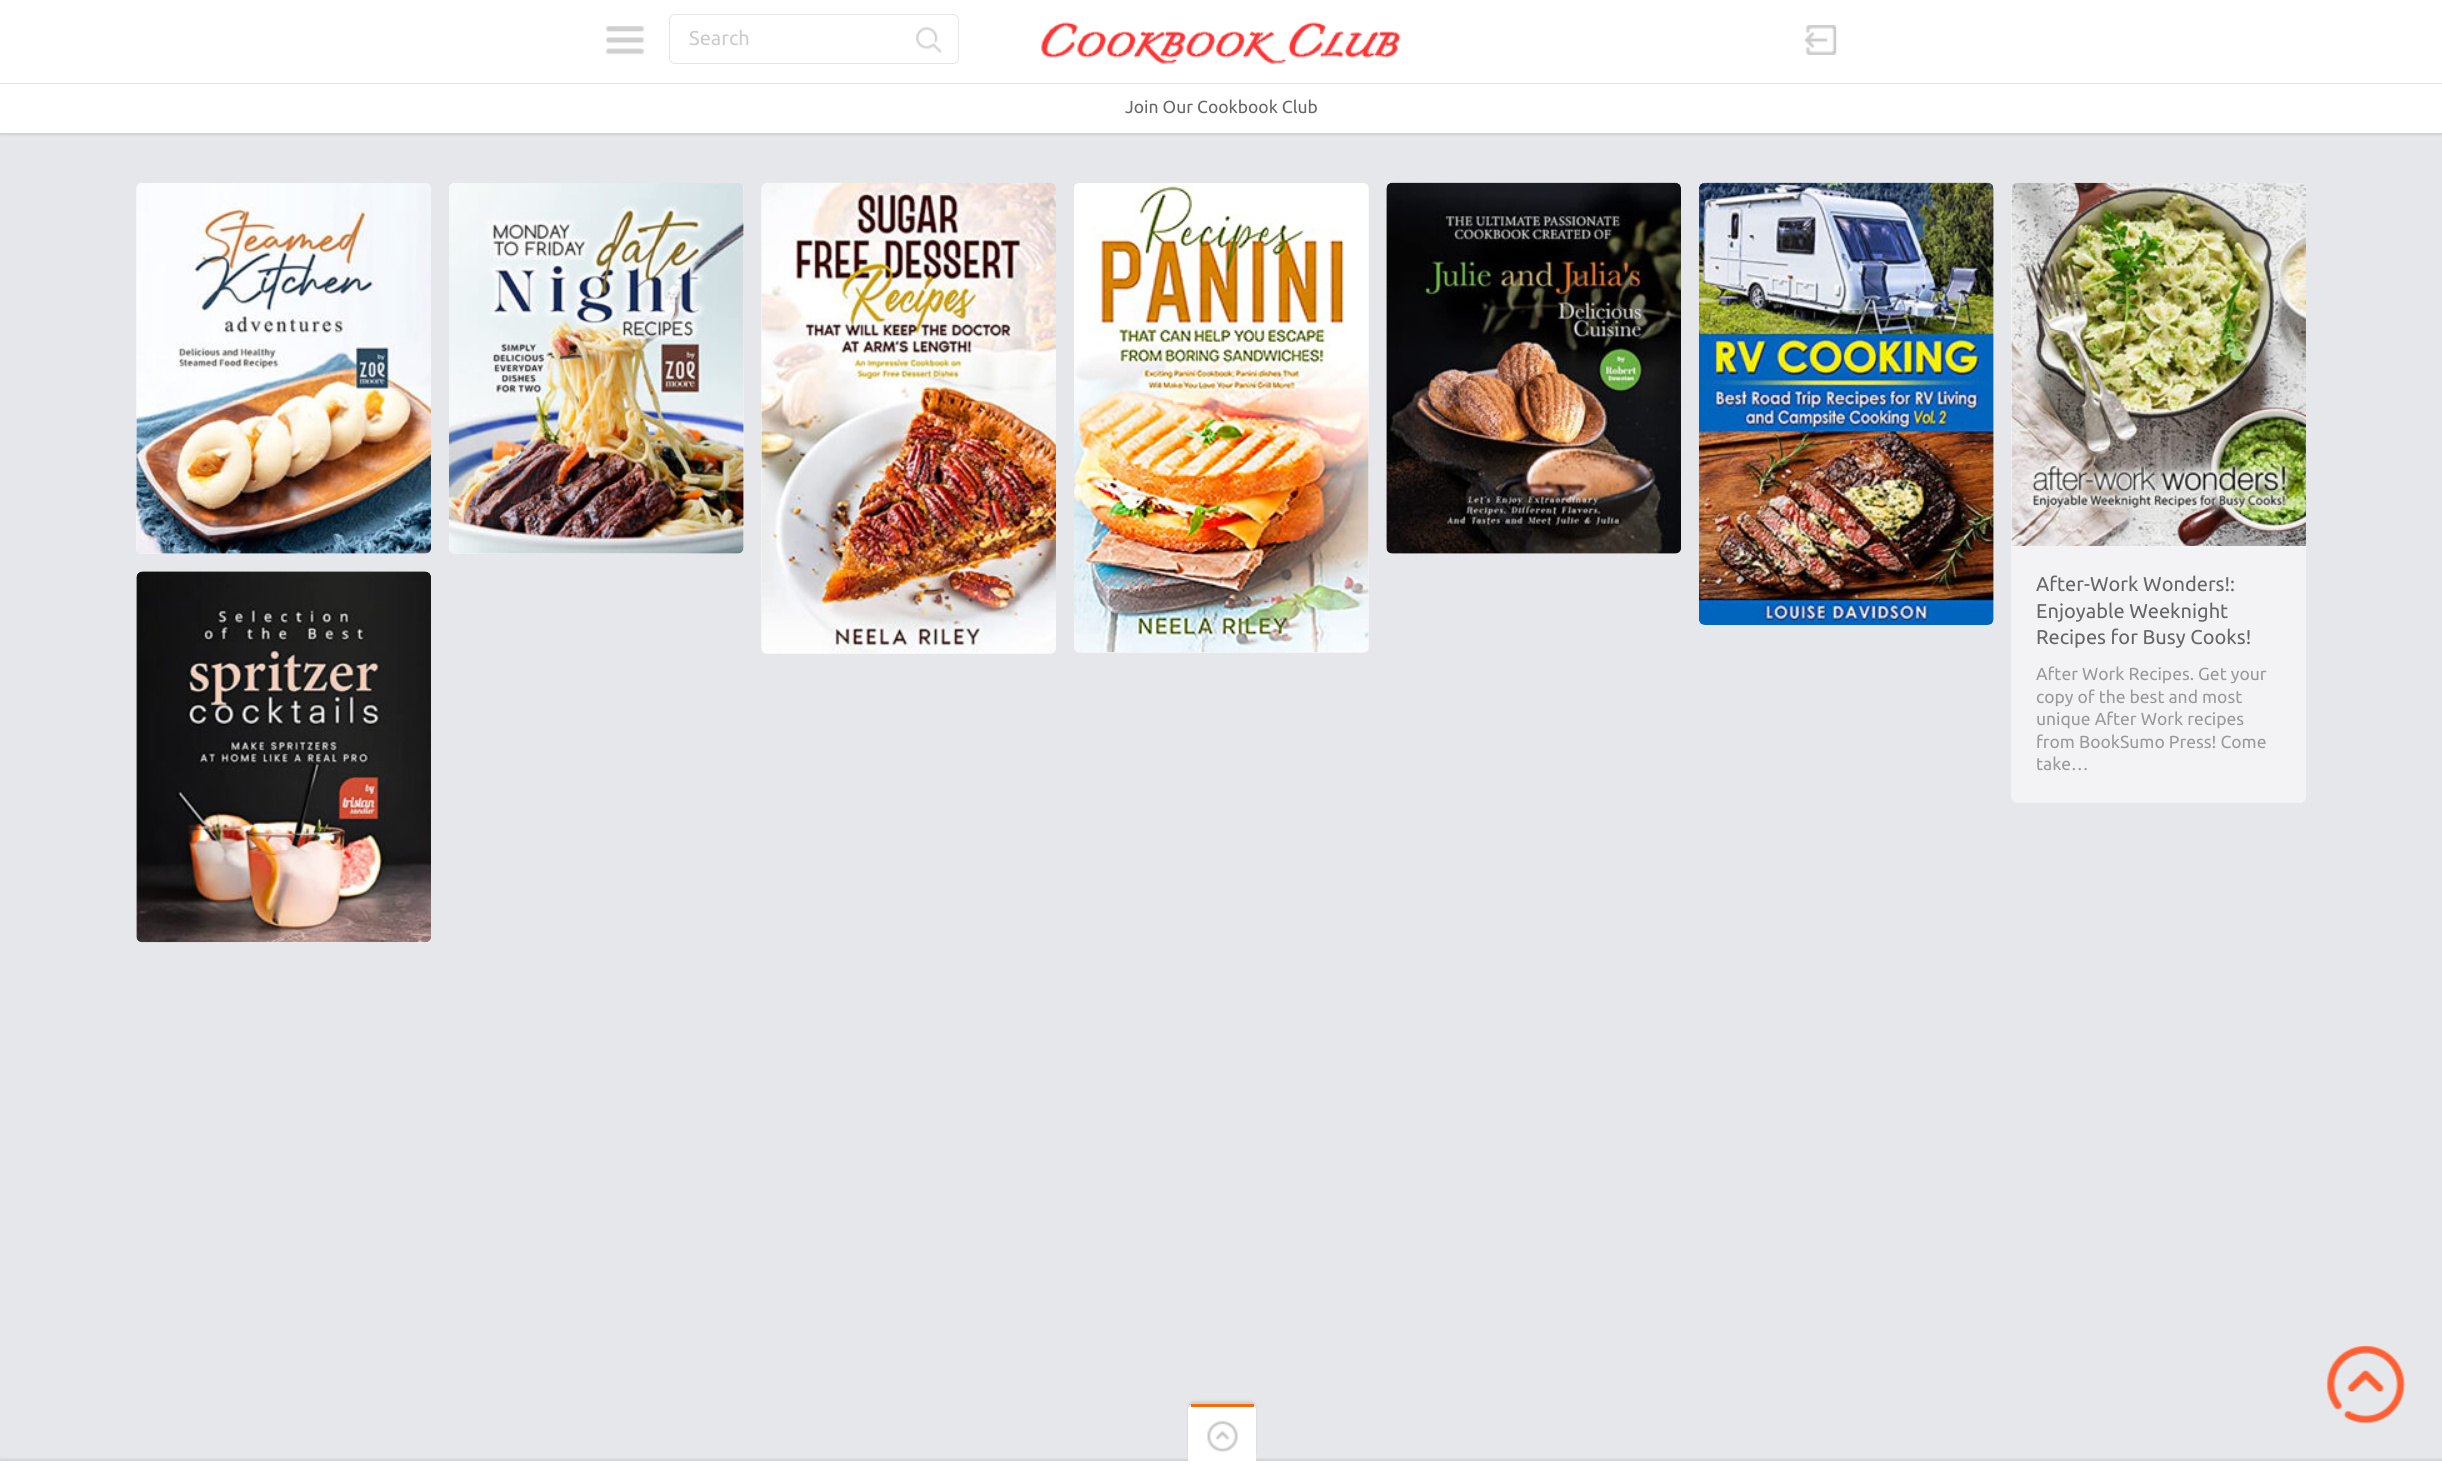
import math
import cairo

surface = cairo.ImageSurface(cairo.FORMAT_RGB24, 2442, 1467)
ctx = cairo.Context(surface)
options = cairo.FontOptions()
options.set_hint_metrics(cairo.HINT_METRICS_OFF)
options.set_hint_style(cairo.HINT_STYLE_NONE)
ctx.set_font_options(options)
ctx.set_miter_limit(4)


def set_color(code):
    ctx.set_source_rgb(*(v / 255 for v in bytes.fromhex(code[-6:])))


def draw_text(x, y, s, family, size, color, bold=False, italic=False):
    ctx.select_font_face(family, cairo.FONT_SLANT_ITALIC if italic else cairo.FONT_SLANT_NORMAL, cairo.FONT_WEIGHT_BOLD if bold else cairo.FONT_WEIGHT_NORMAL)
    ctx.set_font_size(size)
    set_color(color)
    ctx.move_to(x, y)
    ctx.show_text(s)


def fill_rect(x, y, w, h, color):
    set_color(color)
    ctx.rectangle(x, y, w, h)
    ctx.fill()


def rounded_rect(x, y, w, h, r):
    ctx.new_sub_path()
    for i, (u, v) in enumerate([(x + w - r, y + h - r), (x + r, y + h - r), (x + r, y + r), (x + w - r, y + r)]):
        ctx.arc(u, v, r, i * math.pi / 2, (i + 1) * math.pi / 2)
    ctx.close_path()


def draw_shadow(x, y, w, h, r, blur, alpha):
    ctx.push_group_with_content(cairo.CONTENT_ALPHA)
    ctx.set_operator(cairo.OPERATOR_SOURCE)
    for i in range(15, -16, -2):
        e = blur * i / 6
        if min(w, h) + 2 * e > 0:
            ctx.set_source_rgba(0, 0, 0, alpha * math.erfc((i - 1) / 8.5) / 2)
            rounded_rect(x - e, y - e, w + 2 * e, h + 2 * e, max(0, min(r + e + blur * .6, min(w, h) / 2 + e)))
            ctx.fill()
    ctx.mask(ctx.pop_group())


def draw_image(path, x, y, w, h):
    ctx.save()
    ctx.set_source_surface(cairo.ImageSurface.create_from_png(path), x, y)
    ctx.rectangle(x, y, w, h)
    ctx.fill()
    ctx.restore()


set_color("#e5e7ea")
ctx.paint()
set_color("#000000")
draw_shadow(0, 3, 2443, 132, 0, 1, 0.1)
fill_rect(0, 0, 2442, 133, "#ffffff")
draw_image("assets/img1.png", 606, 26, 38, 29)
rounded_rect(669.5, 14.5, 289, 49, 5.5)
set_color("#e5e5e5")
ctx.set_line_width(1)
ctx.stroke()
draw_text(689, 45, "Search", "Ubuntu", 20, "#cccccc")
draw_image("assets/img2.png", 916, 27, 26, 26)
draw_image("assets/img3.png", 1041, 22, 360, 42)
draw_image("assets/img4.png", 1805, 25, 32, 30)
fill_rect(0, 83, 2442, 1, "#e5e7ea")
draw_text(1125, 113, "Join Our Cookbook Club", "Ubuntu", 17.5, "#666666")
set_color("#f3f3f5")
rounded_rect(136, 183, 295, 371, 6)
ctx.fill()
draw_image("assets/img5.png", 136, 183, 295, 371)
rounded_rect(449, 183, 295, 371, 6)
ctx.fill()
draw_image("assets/img6.png", 449, 183, 295, 371)
rounded_rect(761, 183, 295, 471, 6)
ctx.fill()
draw_image("assets/img7.png", 761, 182, 295, 472)
rounded_rect(1074, 183, 295, 470, 6)
ctx.fill()
draw_image("assets/img8.png", 1074, 183, 295, 470)
rounded_rect(1386, 183, 295, 371, 6)
ctx.fill()
draw_image("assets/img9.png", 1386, 182, 295, 372)
rounded_rect(1699, 183, 295, 442, 6)
ctx.fill()
draw_image("assets/img10.png", 1699, 182, 295, 443)
rounded_rect(136, 571, 295, 372, 6)
ctx.fill()
draw_image("assets/img11.png", 136, 571, 295, 372)
rounded_rect(2011, 183, 295, 620, 6)
ctx.fill()
draw_image("assets/img12.png", 2011, 182, 295, 364)
draw_text(2036, 591, "After-Work Wonders!:", "Ubuntu", 20, "#666666")
draw_text(2036, 618, "Enjoyable Weeknight", "Ubuntu", 20, "#666666")
draw_text(2036, 644, "Recipes for Busy Cooks!", "Ubuntu", 20, "#666666")
draw_text(2036, 680, "After Work Recipes. Get your", "Ubuntu", 17.5, "#999999")
draw_text(2036, 703, "copy of the best and most", "Ubuntu", 17.5, "#999999")
draw_text(2036, 725, "unique After Work recipes", "Ubuntu", 17.5, "#999999")
draw_text(2036, 748, "from BookSumo Press! Come", "Ubuntu", 17.5, "#999999")
draw_text(2036, 770, "take…", "Ubuntu", 17.5, "#999999")
set_color("#000000")
draw_shadow(0, 1459, 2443, 6, 0, 1, 0.1)
draw_image("assets/img13.png", 2326, 1345, 80, 79)
fill_rect(0, 1461, 2442, 6, "#ffffff")
set_color("#000000")
draw_shadow(1188, 1401, 68, 58, 6, 1, 0.1)
set_color("#ffffff")
ctx.new_path()
ctx.move_to(1194, 1404)
ctx.line_to(1250, 1404)
ctx.curve_to(1253.5, 1404, 1256, 1406.5, 1256, 1410)
ctx.line_to(1256, 1461)
ctx.line_to(1188, 1461)
ctx.line_to(1188, 1410)
ctx.curve_to(1188, 1406.5, 1190.5, 1404, 1194, 1404)
ctx.close_path()
ctx.fill()
draw_image("assets/img14.png", 1207, 1420, 31, 32)
fill_rect(1191, 1404, 63, 3, "#ff6700")
surface.write_to_png("output.png")
